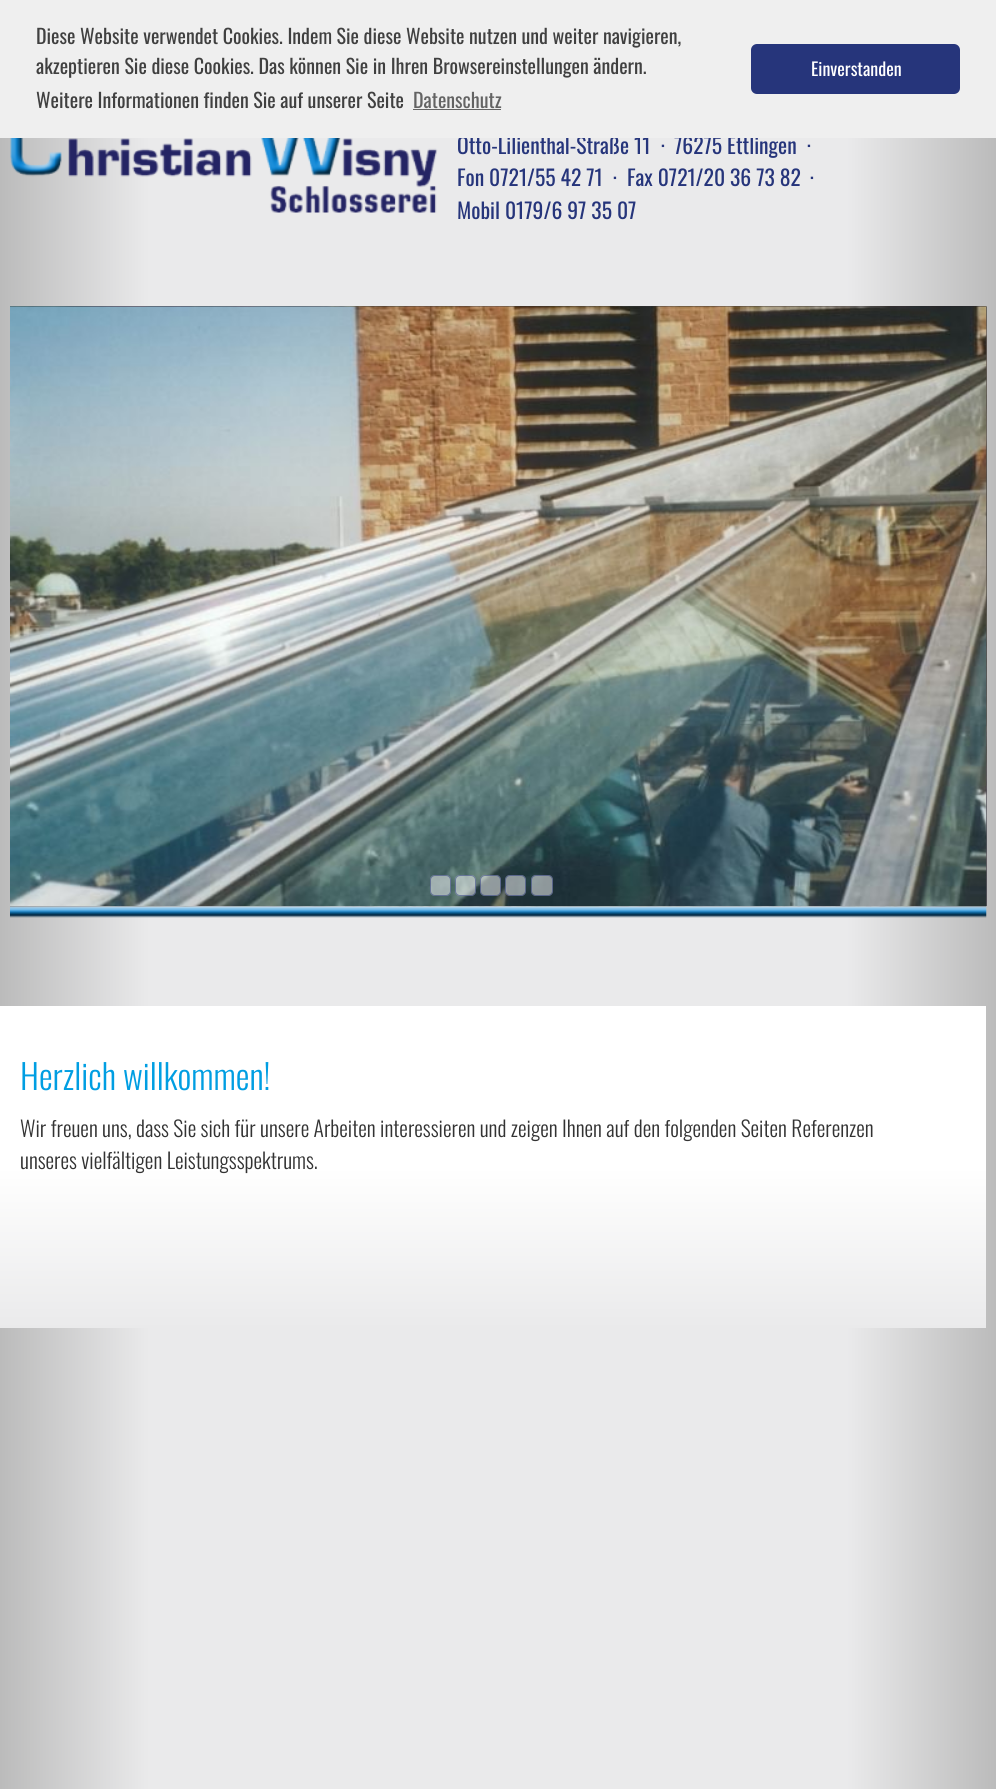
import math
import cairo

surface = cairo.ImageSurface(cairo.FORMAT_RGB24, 996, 1789)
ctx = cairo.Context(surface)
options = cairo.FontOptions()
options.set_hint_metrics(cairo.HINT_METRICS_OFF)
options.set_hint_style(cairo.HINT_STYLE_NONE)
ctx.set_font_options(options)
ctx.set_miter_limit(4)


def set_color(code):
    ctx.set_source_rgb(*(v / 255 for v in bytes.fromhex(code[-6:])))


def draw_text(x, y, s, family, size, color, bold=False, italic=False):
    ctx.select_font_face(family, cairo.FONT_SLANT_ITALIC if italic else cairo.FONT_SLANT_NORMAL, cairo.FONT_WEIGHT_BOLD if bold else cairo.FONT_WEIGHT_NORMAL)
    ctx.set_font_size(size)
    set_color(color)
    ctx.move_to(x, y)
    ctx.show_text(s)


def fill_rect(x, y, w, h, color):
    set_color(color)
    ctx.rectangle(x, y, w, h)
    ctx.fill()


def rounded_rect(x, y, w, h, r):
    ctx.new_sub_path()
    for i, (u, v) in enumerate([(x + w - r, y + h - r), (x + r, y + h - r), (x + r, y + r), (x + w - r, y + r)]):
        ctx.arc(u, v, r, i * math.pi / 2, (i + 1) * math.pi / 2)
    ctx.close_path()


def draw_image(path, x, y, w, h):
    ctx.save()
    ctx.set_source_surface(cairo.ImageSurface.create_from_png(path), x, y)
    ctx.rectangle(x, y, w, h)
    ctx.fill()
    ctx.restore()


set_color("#ffffff")
ctx.paint()
gradient = cairo.LinearGradient(0, 895, 996, 895)
gradient.add_color_stop_rgba(0, 0.733, 0.733, 0.733, 1)
gradient.add_color_stop_rgba(0.15, 0.918, 0.918, 0.922, 1)
gradient.add_color_stop_rgba(0.85, 0.918, 0.918, 0.922, 1)
gradient.add_color_stop_rgba(1, 0.733, 0.733, 0.733, 1)
ctx.set_source(gradient)
ctx.rectangle(0, 138, 996, 1651)
ctx.fill()
draw_text(457, 154, "Otto-Lilienthal-Straße 11", "Oswald", 21.6, "#26357b")
draw_text(674, 154, "76275 Ettlingen", "Oswald", 21.6, "#26357b")
fill_rect(0, 0, 996, 138, "#efefef")
draw_text(36, 44, "Diese Website verwendet Cookies. Indem Sie diese Website nutzen und weiter navigieren,", "Oswald", 20, "#404040")
draw_text(36, 74, "akzeptieren Sie diese Cookies. Das können Sie in Ihren Browsereinstellungen ändern.", "Oswald", 20, "#404040")
draw_text(36, 108, "Weitere Informationen finden Sie auf unserer Seite", "Oswald", 20, "#404040")
draw_text(413, 108, "Datenschutz", "Oswald", 20, "#636363")
fill_rect(413, 109, 88, 1, "#636363")
set_color("#26357b")
rounded_rect(751, 44, 209, 50, 6)
ctx.fill()
draw_text(811, 76, "Einverstanden", "Oswald", 18, "#ffffff")
draw_image("assets/img1.png", 10, 138, 428, 75)
draw_text(661, 154, "·", "Oswald", 21.6, "#26357b")
draw_text(807, 154, "·", "Oswald", 21.6, "#26357b")
draw_text(457, 186, "Fon 0721/55 42 71", "Oswald", 21.6, "#26357b")
draw_text(613, 186, "·", "Oswald", 21.6, "#26357b")
draw_text(627, 186, "Fax 0721/20 36 73 82", "Oswald", 21.6, "#26357b")
draw_text(810, 186, "·", "Oswald", 21.6, "#26357b")
draw_text(457, 219, "Mobil 0179/6 97 35 07", "Oswald", 21.6, "#26357b")
draw_image("assets/img7.png", 10, 906, 977, 12)
draw_image("assets/img2.png", 10, 306, 977, 601)
draw_image("assets/img3.png", 10, 306, 977, 601)
draw_image("assets/img4.png", 10, 306, 977, 601)
draw_image("assets/img5.png", 10, 306, 977, 601)
draw_image("assets/img6.png", 10, 306, 977, 601)
ctx.set_source_rgba(1, 1, 1, 0.5)
rounded_rect(430, 875, 21, 21, 5)
ctx.fill()
rounded_rect(430.5, 875.5, 20, 20, 4.5)
ctx.set_source_rgba(0.149, 0.208, 0.482, 0.5)
ctx.set_line_width(1)
ctx.stroke()
ctx.set_source_rgba(1, 1, 1, 0.5)
rounded_rect(455, 875, 21, 21, 5)
ctx.fill()
rounded_rect(455.5, 875.5, 20, 20, 4.5)
ctx.set_source_rgba(0.149, 0.208, 0.482, 0.5)
ctx.stroke()
ctx.set_source_rgba(1, 1, 1, 0.5)
rounded_rect(480, 875, 21, 21, 5)
ctx.fill()
rounded_rect(480.5, 875.5, 20, 20, 4.5)
ctx.set_source_rgba(0.149, 0.208, 0.482, 0.5)
ctx.stroke()
ctx.set_source_rgba(1, 1, 1, 0.5)
rounded_rect(505, 875, 21, 21, 5)
ctx.fill()
rounded_rect(505.5, 875.5, 20, 20, 4.5)
ctx.set_source_rgba(0.149, 0.208, 0.482, 0.5)
ctx.stroke()
ctx.set_source_rgba(1, 1, 1, 0.5)
rounded_rect(531, 875, 22, 21, 5)
ctx.fill()
rounded_rect(531.5, 875.5, 21, 20, 4.5)
ctx.set_source_rgba(0.149, 0.208, 0.482, 0.5)
ctx.stroke()
gradient = cairo.LinearGradient(470, 1006, 470, 1328)
gradient.add_color_stop_rgba(0, 1, 1, 1, 1)
gradient.add_color_stop_rgba(0.5, 1, 1, 1, 1)
gradient.add_color_stop_rgba(1, 0.918, 0.918, 0.922, 1)
ctx.set_source(gradient)
ctx.rectangle(0, 1006, 986, 322)
ctx.fill()
draw_text(20, 1090, "Herzlich willkommen!", "Oswald Light", 34.5, "#009ee2")
draw_text(20, 1137, "Wir freuen uns, dass Sie sich für unsere Arbeiten interessieren und zeigen Ihnen auf den folgenden Seiten Referenzen", "Oswald Light", 21.6, "#333333")
draw_text(20, 1169, "unseres vielfältigen Leistungsspektrums.", "Oswald Light", 21.6, "#333333")
surface.write_to_png("output.png")
